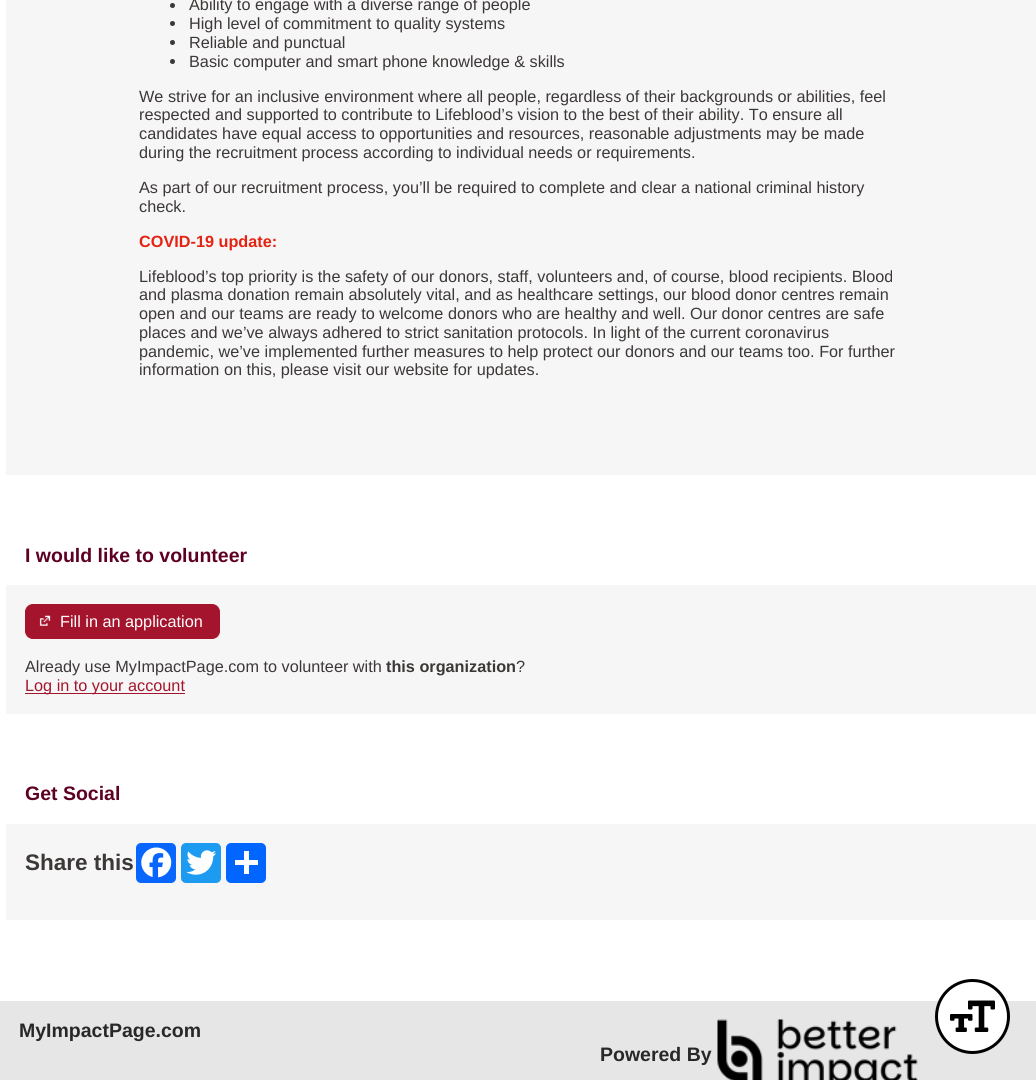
import math
import cairo

surface = cairo.ImageSurface(cairo.FORMAT_RGB24, 1036, 1080)
ctx = cairo.Context(surface)
options = cairo.FontOptions()
options.set_hint_metrics(cairo.HINT_METRICS_OFF)
options.set_hint_style(cairo.HINT_STYLE_NONE)
ctx.set_font_options(options)
ctx.set_miter_limit(4)


def set_color(code):
    ctx.set_source_rgb(*(v / 255 for v in bytes.fromhex(code[-6:])))


def draw_text(x, y, s, family, size, color, bold=False, italic=False):
    ctx.select_font_face(family, cairo.FONT_SLANT_ITALIC if italic else cairo.FONT_SLANT_NORMAL, cairo.FONT_WEIGHT_BOLD if bold else cairo.FONT_WEIGHT_NORMAL)
    ctx.set_font_size(size)
    set_color(color)
    ctx.move_to(x, y)
    ctx.show_text(s)


def fill_rect(x, y, w, h, color):
    set_color(color)
    ctx.rectangle(x, y, w, h)
    ctx.fill()


def rounded_rect(x, y, w, h, r):
    ctx.new_sub_path()
    for i, (u, v) in enumerate([(x + w - r, y + h - r), (x + r, y + h - r), (x + r, y + r), (x + w - r, y + r)]):
        ctx.arc(u, v, r, i * math.pi / 2, (i + 1) * math.pi / 2)
    ctx.close_path()


def draw_image(path, x, y, w, h):
    ctx.save()
    ctx.set_source_surface(cairo.ImageSurface.create_from_png(path), x, y)
    ctx.rectangle(x, y, w, h)
    ctx.fill()
    ctx.restore()


set_color("#ffffff")
ctx.paint()
fill_rect(6, 0, 1030, 475, "#f6f6f6")
set_color("#3d3838")
ctx.arc(172.5, 5.5, 2.5, 0, 2 * math.pi)
ctx.fill()
draw_text(189, 10, "Ability to engage with a diverse range of people", "Liberation Sans", 16.25, "#3d3838")
ctx.new_path()
ctx.arc(172.5, 23.5, 2.5, 0, 2 * math.pi)
ctx.fill()
draw_text(189, 29, "High level of commitment to quality systems", "Liberation Sans", 16.25, "#3d3838")
ctx.new_path()
ctx.arc(172.5, 42.5, 2.5, 0, 2 * math.pi)
ctx.fill()
draw_text(189, 48, "Reliable and punctual", "Liberation Sans", 16.25, "#3d3838")
ctx.new_path()
ctx.arc(172.5, 61.5, 2.5, 0, 2 * math.pi)
ctx.fill()
draw_text(189, 67, "Basic computer and smart phone knowledge & skills", "Liberation Sans", 16.25, "#3d3838")
draw_text(139, 102, "We strive for an inclusive environment where all people, regardless of their backgrounds or abilities, feel", "Liberation Sans", 16.25, "#3d3838")
draw_text(139, 120, "respected and supported to contribute to Lifeblood’s vision to the best of their ability. To ensure all", "Liberation Sans", 16.25, "#3d3838")
draw_text(139, 139, "candidates have equal access to opportunities and resources, reasonable adjustments may be made", "Liberation Sans", 16.25, "#3d3838")
draw_text(139, 158, "during the recruitment process according to individual needs or requirements.", "Liberation Sans", 16.25, "#3d3838")
draw_text(139, 193, "As part of our recruitment process, you’ll be required to complete and clear a national criminal history", "Liberation Sans", 16.25, "#3d3838")
draw_text(139, 212, "check.", "Liberation Sans", 16.25, "#3d3838")
draw_text(139, 247, "COVID-19 update:", "Liberation Sans", 16.25, "#e42313", bold=True)
draw_text(139, 282, "Lifeblood’s top priority is the safety of our donors, staff, volunteers and, of course, blood recipients. Blood", "Liberation Sans", 16.25, "#3d3838")
draw_text(139, 300, "and plasma donation remain absolutely vital, and as healthcare settings, our blood donor centres remain", "Liberation Sans", 16.25, "#3d3838")
draw_text(139, 319, "open and our teams are ready to welcome donors who are healthy and well. Our donor centres are safe", "Liberation Sans", 16.25, "#3d3838")
draw_text(139, 338, "places and we’ve always adhered to strict sanitation protocols. In light of the current coronavirus", "Liberation Sans", 16.25, "#3d3838")
draw_text(139, 357, "pandemic, we’ve implemented further measures to help protect our donors and our teams too. For further", "Liberation Sans", 16.25, "#3d3838")
draw_text(139, 375, "information on this, please visit our website for updates.", "Liberation Sans", 16.25, "#3d3838")
draw_text(25, 562, "I would like to volunteer", "Liberation Sans", 19.5, "#5e0024", bold=True)
fill_rect(6, 585, 1030, 129, "#f6f6f6")
set_color("#a4152d")
rounded_rect(25.5, 604.5, 194, 34, 7.5)
ctx.fill_preserve()
ctx.set_line_width(1)
ctx.stroke()
draw_image("assets/img1.png", 39, 615, 12, 11)
draw_text(60, 627, "Fill in an application", "Liberation Sans", 16.25, "#ffffff")
draw_text(25, 672, "Already use MyImpactPage.com to volunteer with", "Liberation Sans", 16.25, "#3d3838")
draw_text(386, 672, "this organization", "Liberation Sans", 16.25, "#3d3838", bold=True)
draw_text(516, 672, "?", "Liberation Sans", 16.25, "#3d3838")
fill_rect(25, 693, 160, 1, "#a4152d")
draw_text(25, 691, "Log in to your account", "Liberation Sans", 16.25, "#a4152d")
draw_text(25, 800, "Get Social", "Liberation Sans", 19.5, "#5e0024", bold=True)
fill_rect(6, 824, 1030, 96, "#f6f6f6")
draw_text(25, 870, "Share this", "Liberation Sans", 22.5, "#3d3838", bold=True)
set_color("#0866ff")
rounded_rect(136, 843, 40, 40, 5)
ctx.fill()
draw_image("assets/img2.png", 141, 847, 31, 31)
set_color("#1d9bf0")
rounded_rect(181, 843, 40, 40, 5)
ctx.fill()
draw_image("assets/img3.png", 186, 850, 31, 25)
set_color("#0166ff")
rounded_rect(226, 843, 40, 40, 5)
ctx.fill()
fill_rect(244, 851, 5, 23, "#ffffff")
fill_rect(235, 860, 23, 5, "#ffffff")
fill_rect(0, 1001, 1036, 79, "#e6e6e6")
draw_text(19, 1037, "MyImpactPage.com", "Liberation Sans", 19.5, "#282828", bold=True)
draw_text(600, 1061, "Powered By", "Liberation Sans", 19.5, "#282828", bold=True)
draw_image("assets/img4.png", 717, 1019, 201, 61)
set_color("#ffffff")
ctx.arc(972.5, 1016.5, 36, 0, 2 * math.pi)
ctx.fill_preserve()
set_color("#000000")
ctx.set_line_width(3)
ctx.stroke()
draw_image("assets/img5.png", 950, 1000, 45, 32)
surface.write_to_png("output.png")
